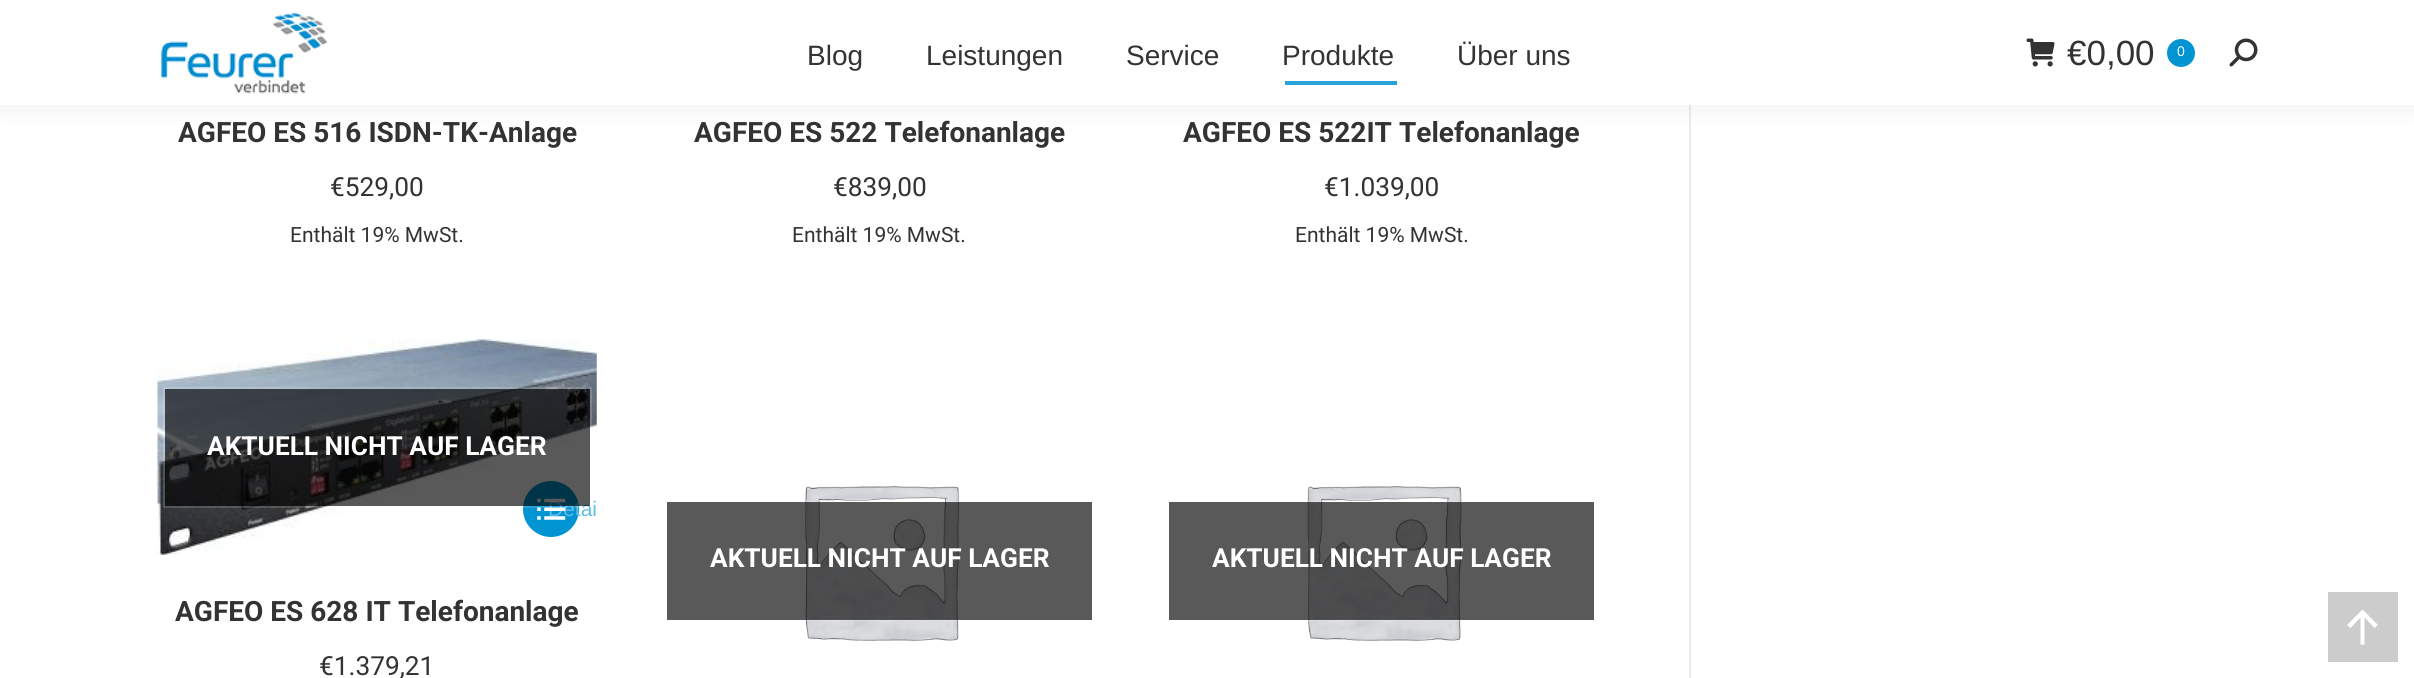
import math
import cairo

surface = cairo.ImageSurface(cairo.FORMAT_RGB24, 2414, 678)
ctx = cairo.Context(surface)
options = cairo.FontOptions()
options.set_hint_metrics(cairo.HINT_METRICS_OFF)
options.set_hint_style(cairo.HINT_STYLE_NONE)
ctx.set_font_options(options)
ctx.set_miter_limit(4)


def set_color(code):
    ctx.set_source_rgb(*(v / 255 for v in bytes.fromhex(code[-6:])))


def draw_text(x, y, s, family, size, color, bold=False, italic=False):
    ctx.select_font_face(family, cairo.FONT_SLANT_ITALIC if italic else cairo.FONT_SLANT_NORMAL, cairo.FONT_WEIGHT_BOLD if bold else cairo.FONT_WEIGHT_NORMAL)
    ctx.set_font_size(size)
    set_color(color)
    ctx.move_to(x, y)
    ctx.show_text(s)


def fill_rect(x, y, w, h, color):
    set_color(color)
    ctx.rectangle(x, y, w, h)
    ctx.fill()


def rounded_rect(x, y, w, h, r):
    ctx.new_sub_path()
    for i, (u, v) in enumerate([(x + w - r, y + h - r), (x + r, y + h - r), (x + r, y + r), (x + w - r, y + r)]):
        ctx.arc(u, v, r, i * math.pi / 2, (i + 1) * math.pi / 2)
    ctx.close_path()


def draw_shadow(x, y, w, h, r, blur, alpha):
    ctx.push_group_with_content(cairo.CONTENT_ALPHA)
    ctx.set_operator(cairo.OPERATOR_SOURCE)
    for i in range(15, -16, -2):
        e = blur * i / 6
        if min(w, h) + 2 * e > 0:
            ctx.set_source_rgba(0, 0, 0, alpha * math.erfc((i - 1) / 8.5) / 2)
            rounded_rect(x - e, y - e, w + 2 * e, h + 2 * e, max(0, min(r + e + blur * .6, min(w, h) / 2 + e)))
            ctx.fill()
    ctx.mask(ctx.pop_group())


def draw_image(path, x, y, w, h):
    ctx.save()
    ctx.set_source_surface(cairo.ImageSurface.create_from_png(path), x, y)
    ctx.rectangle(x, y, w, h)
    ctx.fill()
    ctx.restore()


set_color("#ffffff")
ctx.paint()
fill_rect(1689, 105, 2, 573, "#ebebeb")
set_color("#000000")
draw_shadow(-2, -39, 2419, 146, 0, 13, 0.07)
fill_rect(0, 0, 2414, 105, "#ffffff")
draw_image("assets/img1.png", 161, 12, 167, 82)
draw_text(807, 65, "Blog", "Liberation Sans", 28, "#333333")
draw_text(926, 65, "Leistungen", "Liberation Sans", 28, "#333333")
draw_text(1126, 65, "Service", "Liberation Sans", 28, "#333333")
draw_text(1282, 65, "Produkte", "Liberation Sans", 28, "#333333")
fill_rect(1285, 81, 112, 4, "#26a4d9")
draw_text(1457, 65, "Über uns", "Liberation Sans", 28, "#333333")
draw_image("assets/img2.png", 2026, 38, 29, 29)
draw_text(2067, 65, "€0,00", "Liberation Sans", 35, "#333333")
set_color("#0094d2")
ctx.new_path()
ctx.arc(2181, 53, 14, 0, 2 * math.pi)
ctx.fill()
draw_text(2177, 56, "0", "Liberation Sans", 14, "#ffffff")
draw_image("assets/img3.png", 2229, 38, 29, 29)
draw_text(178, 142, "AGFEO ES 516 ISDN-TK-Anlage", "Roboto", 28, "#333333", bold=True)
draw_text(330, 196, "€529,00", "Roboto", 26.25, "#333333")
draw_text(290, 242, "Enthält 19% MwSt.", "Roboto", 21, "#333333")
draw_text(694, 142, "AGFEO ES 522 Telefonanlage", "Roboto", 28, "#333333", bold=True)
draw_text(833, 196, "€839,00", "Roboto", 26.25, "#333333")
draw_text(792, 242, "Enthält 19% MwSt.", "Roboto", 21, "#333333")
draw_text(1183, 142, "AGFEO ES 522IT Telefonanlage", "Roboto", 28, "#333333", bold=True)
draw_text(1324, 196, "€1.039,00", "Roboto", 26.25, "#333333")
draw_text(1295, 242, "Enthält 19% MwSt.", "Roboto", 21, "#333333")
draw_image("assets/img4.png", 157, 339, 440, 216)
set_color("#0094d2")
ctx.arc(551, 509, 28, 0, 2 * math.pi)
ctx.fill()
draw_text(548, 516, "Detai", "Liberation Sans", 21, "#62bde3")
draw_image("assets/img5.png", 537, 498, 29, 22)
ctx.rectangle(164, 388, 427, 119)
ctx.set_source_rgba(1, 1, 1, 0.15)
ctx.stroke()
ctx.set_source_rgba(0, 0, 0, 0.65)
ctx.rectangle(165, 389, 425, 117)
ctx.fill()
draw_text(207, 455, "AKTUELL NICHT AUF LAGER", "Roboto", 26.25, "#ffffff", bold=True)
draw_text(175, 621, "AGFEO ES 628 IT Telefonanlage", "Roboto", 28, "#333333", bold=True)
draw_text(319, 675, "€1.379,21", "Roboto", 26.25, "#333333")
draw_image("assets/img6.png", 805, 486, 155, 156)
ctx.rectangle(666, 502, 427, 118)
ctx.set_source_rgba(1, 1, 1, 0.15)
ctx.stroke()
ctx.set_source_rgba(0, 0, 0, 0.65)
ctx.rectangle(667, 502, 425, 118)
ctx.fill()
draw_text(710, 567, "AKTUELL NICHT AUF LAGER", "Roboto", 26.25, "#ffffff", bold=True)
draw_image("assets/img7.png", 1307, 486, 155, 156)
ctx.rectangle(1168, 502, 427, 118)
ctx.set_source_rgba(1, 1, 1, 0.15)
ctx.stroke()
ctx.set_source_rgba(0, 0, 0, 0.65)
ctx.rectangle(1169, 502, 425, 118)
ctx.fill()
draw_text(1212, 567, "AKTUELL NICHT AUF LAGER", "Roboto", 26.25, "#ffffff", bold=True)
fill_rect(2328, 592, 70, 70, "#cccccc")
set_color("#ffffff")
ctx.new_path()
ctx.move_to(2347, 625)
ctx.line_to(2350.5, 628)
ctx.line_to(2360.5, 617.5)
ctx.line_to(2360.5, 644.5)
ctx.line_to(2364.5, 644.5)
ctx.line_to(2364.5, 617.5)
ctx.line_to(2374.5, 628)
ctx.line_to(2378, 625)
ctx.line_to(2362.5, 609.5)
ctx.close_path()
ctx.fill()
surface.write_to_png("output.png")
